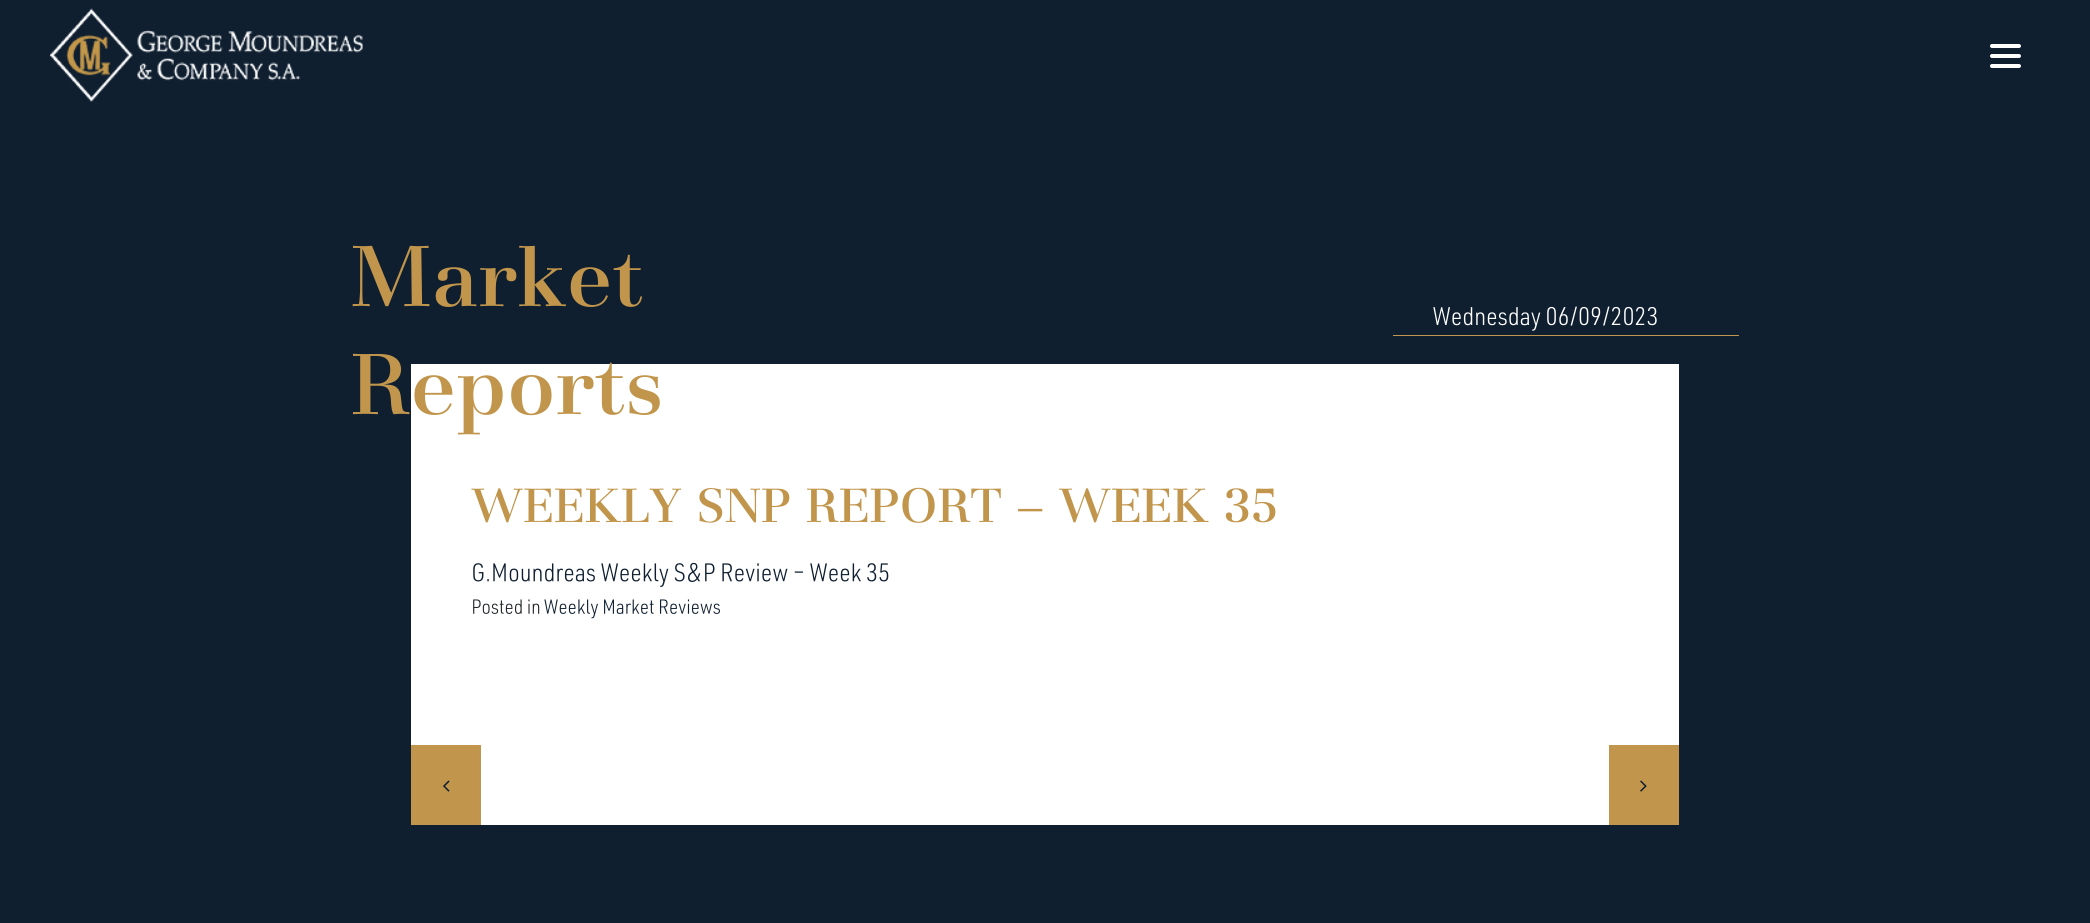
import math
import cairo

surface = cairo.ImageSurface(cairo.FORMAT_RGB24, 2090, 923)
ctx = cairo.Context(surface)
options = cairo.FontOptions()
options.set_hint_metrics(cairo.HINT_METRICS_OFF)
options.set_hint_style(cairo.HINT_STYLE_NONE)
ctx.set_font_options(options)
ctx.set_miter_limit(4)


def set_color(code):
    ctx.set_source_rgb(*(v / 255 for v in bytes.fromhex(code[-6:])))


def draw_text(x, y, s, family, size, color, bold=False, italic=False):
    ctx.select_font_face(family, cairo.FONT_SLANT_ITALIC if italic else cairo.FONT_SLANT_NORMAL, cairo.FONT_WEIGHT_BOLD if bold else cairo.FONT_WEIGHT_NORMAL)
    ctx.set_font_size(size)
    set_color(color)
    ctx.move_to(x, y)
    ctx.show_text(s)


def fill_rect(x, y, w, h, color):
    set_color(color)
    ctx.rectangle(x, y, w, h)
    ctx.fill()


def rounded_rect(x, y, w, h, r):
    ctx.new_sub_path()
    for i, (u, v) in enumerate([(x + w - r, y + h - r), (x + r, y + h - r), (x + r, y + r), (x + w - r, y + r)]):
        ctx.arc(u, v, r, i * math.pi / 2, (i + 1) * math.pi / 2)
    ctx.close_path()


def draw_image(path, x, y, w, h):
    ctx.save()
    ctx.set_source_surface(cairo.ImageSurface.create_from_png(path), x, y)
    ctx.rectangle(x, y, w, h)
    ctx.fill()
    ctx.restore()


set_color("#0f1f30")
ctx.paint()
set_color("#ffffff")
rounded_rect(1990, 64, 31, 4, 2)
ctx.fill()
rounded_rect(1990, 44, 31, 4, 2)
ctx.fill()
rounded_rect(1990, 54, 31, 4, 2)
ctx.fill()
draw_image("assets/img1.png", 50, 8, 313, 94)
draw_text(351, 306, "Market", "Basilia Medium", 90, "#c1964c")
fill_rect(411, 364, 1268, 461, "#ffffff")
draw_text(351, 414, "Reports", "Basilia Medium", 90, "#c1964c")
fill_rect(1393, 335, 346, 1, "#c1964c")
draw_image("assets/img2.png", 1433, 306, 224, 25)
draw_text(471, 522, "WEEKLY SNP REPORT – WEEK 35", "Basilia Medium", 50, "#c1964c")
draw_image("assets/img3.png", 473, 562, 416, 25)
draw_image("assets/img4.png", 473, 599, 67, 15)
draw_image("assets/img5.png", 544, 599, 176, 20)
fill_rect(411, 745, 70, 80, "#c1964c")
draw_image("assets/img6.png", 443, 780, 7, 12)
fill_rect(1609, 745, 70, 80, "#c1964c")
draw_image("assets/img7.png", 1640, 780, 7, 12)
surface.write_to_png("output.png")
